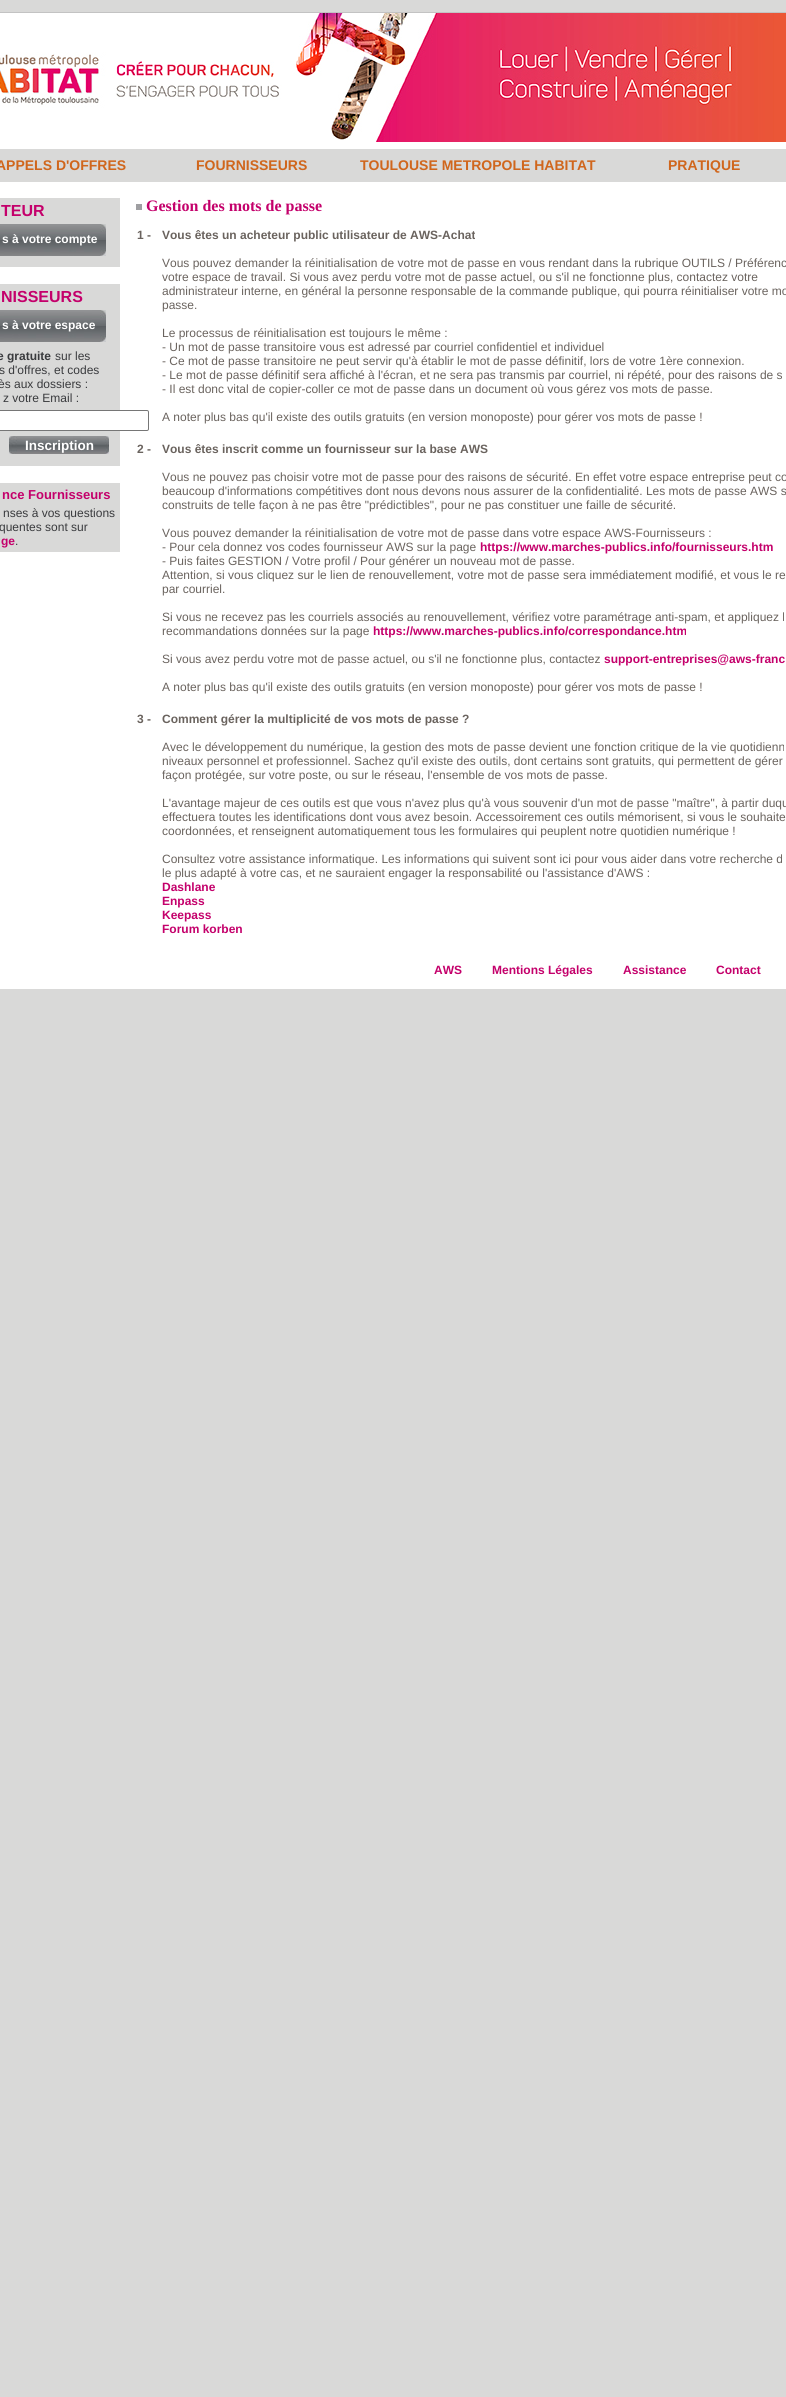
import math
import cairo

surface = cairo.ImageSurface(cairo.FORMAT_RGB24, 786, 2397)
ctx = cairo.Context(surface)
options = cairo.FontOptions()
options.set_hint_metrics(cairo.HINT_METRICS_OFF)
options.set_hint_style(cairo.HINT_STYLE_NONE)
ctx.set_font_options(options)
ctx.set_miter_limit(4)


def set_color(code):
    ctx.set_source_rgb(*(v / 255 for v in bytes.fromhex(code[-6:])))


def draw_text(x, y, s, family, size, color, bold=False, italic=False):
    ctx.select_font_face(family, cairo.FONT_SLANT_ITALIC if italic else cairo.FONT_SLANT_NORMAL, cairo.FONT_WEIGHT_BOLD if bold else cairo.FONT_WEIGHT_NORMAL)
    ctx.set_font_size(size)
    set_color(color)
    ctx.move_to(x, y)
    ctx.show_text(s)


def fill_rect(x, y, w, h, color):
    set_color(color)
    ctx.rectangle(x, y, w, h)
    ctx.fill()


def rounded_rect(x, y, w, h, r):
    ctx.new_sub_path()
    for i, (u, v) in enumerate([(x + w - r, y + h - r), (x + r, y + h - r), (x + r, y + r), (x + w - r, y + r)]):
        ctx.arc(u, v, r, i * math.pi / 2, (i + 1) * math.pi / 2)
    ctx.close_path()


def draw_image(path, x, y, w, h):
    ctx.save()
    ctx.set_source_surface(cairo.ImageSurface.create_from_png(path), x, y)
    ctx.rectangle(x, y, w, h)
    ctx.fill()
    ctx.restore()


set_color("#d9d9d8")
ctx.paint()
fill_rect(0, 142, 786, 7, "#ffffff")
draw_image("assets/img1.png", 0, 12, 786, 130)
draw_text(-4, 170, "APPELS D'OFFRES", "Liberation Sans", 14, "#d0661c", bold=True)
draw_text(196, 170, "FOURNISSEURS", "Liberation Sans", 14, "#d0661c", bold=True)
draw_text(360, 170, "TOULOUSE METROPOLE HABITAT", "Liberation Sans", 14, "#d0661c", bold=True)
draw_text(668, 170, "PRATIQUE", "Liberation Sans", 14, "#d0661c", bold=True)
fill_rect(0, 182, 786, 807, "#ffffff")
fill_rect(0, 198, 120, 69, "#d9d9d8")
draw_text(1, 216, "TEUR", "Liberation Sans", 16, "#c4006b", bold=True)
draw_image("assets/img2.png", 0, 224, 106, 32)
draw_text(2, 243, "s à votre compte", "Liberation Sans", 12, "#ffffff", bold=True)
fill_rect(0, 284, 120, 182, "#d9d9d8")
draw_text(1, 302, "NISSEURS", "Liberation Sans", 16, "#c4006b", bold=True)
draw_image("assets/img2.png", 0, 310, 106, 32)
draw_text(2, 329, "s à votre espace", "Liberation Sans", 12, "#ffffff", bold=True)
draw_text(-3, 360, "e gratuite", "Liberation Sans", 12, "#393a3d", bold=True)
draw_text(55, 360, "sur les", "Liberation Sans", 12, "#393a3d")
draw_text(-1, 374, "s d'offres, et codes", "Liberation Sans", 12, "#393a3d")
draw_text(-2, 388, "ès aux dossiers :", "Liberation Sans", 12, "#393a3d")
draw_text(3, 402, "z votre Email :", "Liberation Sans", 12, "#393a3d")
set_color("#ffffff")
rounded_rect(-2.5, 410.5, 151, 20, 1.5)
ctx.fill_preserve()
set_color("#767676")
ctx.set_line_width(1)
ctx.stroke()
draw_image("assets/img3.png", 9, 436, 100, 18)
draw_text(25, 450, "Inscription", "Liberation Sans", 13.5, "#ffffff", bold=True)
fill_rect(0, 483, 120, 69, "#d9d9d8")
draw_text(2, 499, "nce Fournisseurs", "Liberation Sans", 13, "#c4006b", bold=True)
draw_text(3, 517, "nses à vos questions", "Liberation Sans", 12, "#393a3d")
draw_text(-1, 531, "quentes sont sur", "Liberation Sans", 12, "#393a3d")
draw_text(1, 545, "ge", "Liberation Sans", 12, "#c4006b", bold=True)
draw_text(15, 545, ".", "Liberation Sans", 12, "#393a3d")
fill_rect(136, 204, 6, 6, "#9f9fa2")
draw_text(146, 211, "Gestion des mots de passe", "Liberation Serif", 16, "#c4006b", bold=True)
draw_text(137, 239, "1 -", "Liberation Sans", 12, "#6a635e", bold=True)
draw_text(162, 239, "Vous êtes un acheteur public utilisateur de AWS-Achat", "Liberation Sans", 12, "#6a635e", bold=True)
draw_text(162, 267, "Vous pouvez demander la réinitialisation de votre mot de passe en vous rendant dans la rubrique OUTILS / Préférenc", "Liberation Sans", 12, "#6a635e")
draw_text(162, 281, "votre espace de travail. Si vous avez perdu votre mot de passe actuel, ou s'il ne fonctionne plus, contactez votre", "Liberation Sans", 12, "#6a635e")
draw_text(162, 295, "administrateur interne, en général la personne responsable de la commande publique, qui pourra réinitialiser votre mo", "Liberation Sans", 12, "#6a635e")
draw_text(162, 309, "passe.", "Liberation Sans", 12, "#6a635e")
draw_text(162, 337, "Le processus de réinitialisation est toujours le même :", "Liberation Sans", 12, "#6a635e")
draw_text(162, 351, "- Un mot de passe transitoire vous est adressé par courriel confidentiel et individuel", "Liberation Sans", 12, "#6a635e")
draw_text(162, 365, "- Ce mot de passe transitoire ne peut servir qu'à établir le mot de passe définitif, lors de votre 1ère connexion.", "Liberation Sans", 12, "#6a635e")
draw_text(162, 379, "- Le mot de passe définitif sera affiché à l'écran, et ne sera pas transmis par courriel, ni répété, pour des raisons de s", "Liberation Sans", 12, "#6a635e")
draw_text(162, 393, "- Il est donc vital de copier-coller ce mot de passe dans un document où vous gérez vos mots de passe.", "Liberation Sans", 12, "#6a635e")
draw_text(162, 421, "A noter plus bas qu'il existe des outils gratuits (en version monoposte) pour gérer vos mots de passe !", "Liberation Sans", 12, "#6a635e")
draw_text(137, 453, "2 -", "Liberation Sans", 12, "#6a635e", bold=True)
draw_text(162, 453, "Vous êtes inscrit comme un fournisseur sur la base AWS", "Liberation Sans", 12, "#6a635e", bold=True)
draw_text(162, 481, "Vous ne pouvez pas choisir votre mot de passe pour des raisons de sécurité. En effet votre espace entreprise peut co", "Liberation Sans", 12, "#6a635e")
draw_text(162, 495, "beaucoup d'informations compétitives dont nous devons nous assurer de la confidentialité. Les mots de passe AWS s", "Liberation Sans", 12, "#6a635e")
draw_text(162, 509, "construits de telle façon à ne pas être \"prédictibles\", pour ne pas constituer une faille de sécurité.", "Liberation Sans", 12, "#6a635e")
draw_text(162, 537, "Vous pouvez demander la réinitialisation de votre mot de passe dans votre espace AWS-Fournisseurs :", "Liberation Sans", 12, "#6a635e")
draw_text(162, 551, "- Pour cela donnez vos codes fournisseur AWS sur la page", "Liberation Sans", 12, "#6a635e")
draw_text(480, 551, "https://www.marches-publics.info/fournisseurs.htm", "Liberation Sans", 12, "#c4006b", bold=True)
draw_text(162, 565, "- Puis faites GESTION / Votre profil / Pour générer un nouveau mot de passe.", "Liberation Sans", 12, "#6a635e")
draw_text(162, 579, "Attention, si vous cliquez sur le lien de renouvellement, votre mot de passe sera immédiatement modifié, et vous le re", "Liberation Sans", 12, "#6a635e")
draw_text(162, 593, "par courriel.", "Liberation Sans", 12, "#6a635e")
draw_text(162, 621, "Si vous ne recevez pas les courriels associés au renouvellement, vérifiez votre paramétrage anti-spam, et appliquez l", "Liberation Sans", 12, "#6a635e")
draw_text(162, 635, "recommandations données sur la page", "Liberation Sans", 12, "#6a635e")
draw_text(373, 635, "https://www.marches-publics.info/correspondance.htm", "Liberation Sans", 12, "#c4006b", bold=True)
draw_text(162, 663, "Si vous avez perdu votre mot de passe actuel, ou s'il ne fonctionne plus, contactez", "Liberation Sans", 12, "#6a635e")
draw_text(604, 663, "support-entreprises@aws-franc", "Liberation Sans", 12, "#c4006b", bold=True)
draw_text(162, 691, "A noter plus bas qu'il existe des outils gratuits (en version monoposte) pour gérer vos mots de passe !", "Liberation Sans", 12, "#6a635e")
draw_text(137, 723, "3 -", "Liberation Sans", 12, "#6a635e", bold=True)
draw_text(162, 723, "Comment gérer la multiplicité de vos mots de passe ?", "Liberation Sans", 12, "#6a635e", bold=True)
draw_text(162, 751, "Avec le développement du numérique, la gestion des mots de passe devient une fonction critique de la vie quotidienn", "Liberation Sans", 12, "#6a635e")
draw_text(162, 765, "niveaux personnel et professionnel. Sachez qu'il existe des outils, dont certains sont gratuits, qui permettent de gérer", "Liberation Sans", 12, "#6a635e")
draw_text(162, 779, "façon protégée, sur votre poste, ou sur le réseau, l'ensemble de vos mots de passe.", "Liberation Sans", 12, "#6a635e")
draw_text(162, 807, "L'avantage majeur de ces outils est que vous n'avez plus qu'à vous souvenir d'un mot de passe \"maître\", à partir duqu", "Liberation Sans", 12, "#6a635e")
draw_text(162, 821, "effectuera toutes les identifications dont vous avez besoin. Accessoirement ces outils mémorisent, si vous le souhaite", "Liberation Sans", 12, "#6a635e")
draw_text(162, 835, "coordonnées, et renseignent automatiquement tous les formulaires qui peuplent notre quotidien numérique !", "Liberation Sans", 12, "#6a635e")
draw_text(162, 863, "Consultez votre assistance informatique. Les informations qui suivent sont ici pour vous aider dans votre recherche d", "Liberation Sans", 12, "#6a635e")
draw_text(162, 877, "le plus adapté à votre cas, et ne sauraient engager la responsabilité ou l'assistance d'AWS :", "Liberation Sans", 12, "#6a635e")
draw_text(162, 891, "Dashlane", "Liberation Sans", 12, "#c4006b", bold=True)
draw_text(162, 905, "Enpass", "Liberation Sans", 12, "#c4006b", bold=True)
draw_text(162, 919, "Keepass", "Liberation Sans", 12, "#c4006b", bold=True)
draw_text(162, 933, "Forum korben", "Liberation Sans", 12, "#c4006b", bold=True)
draw_text(434, 974, "AWS", "Liberation Sans", 12, "#c4006b", bold=True)
draw_text(492, 974, "Mentions Légales", "Liberation Sans", 12, "#c4006b", bold=True)
draw_text(623, 974, "Assistance", "Liberation Sans", 12, "#c4006b", bold=True)
draw_text(716, 974, "Contact", "Liberation Sans", 12, "#c4006b", bold=True)
surface.write_to_png("output.png")
